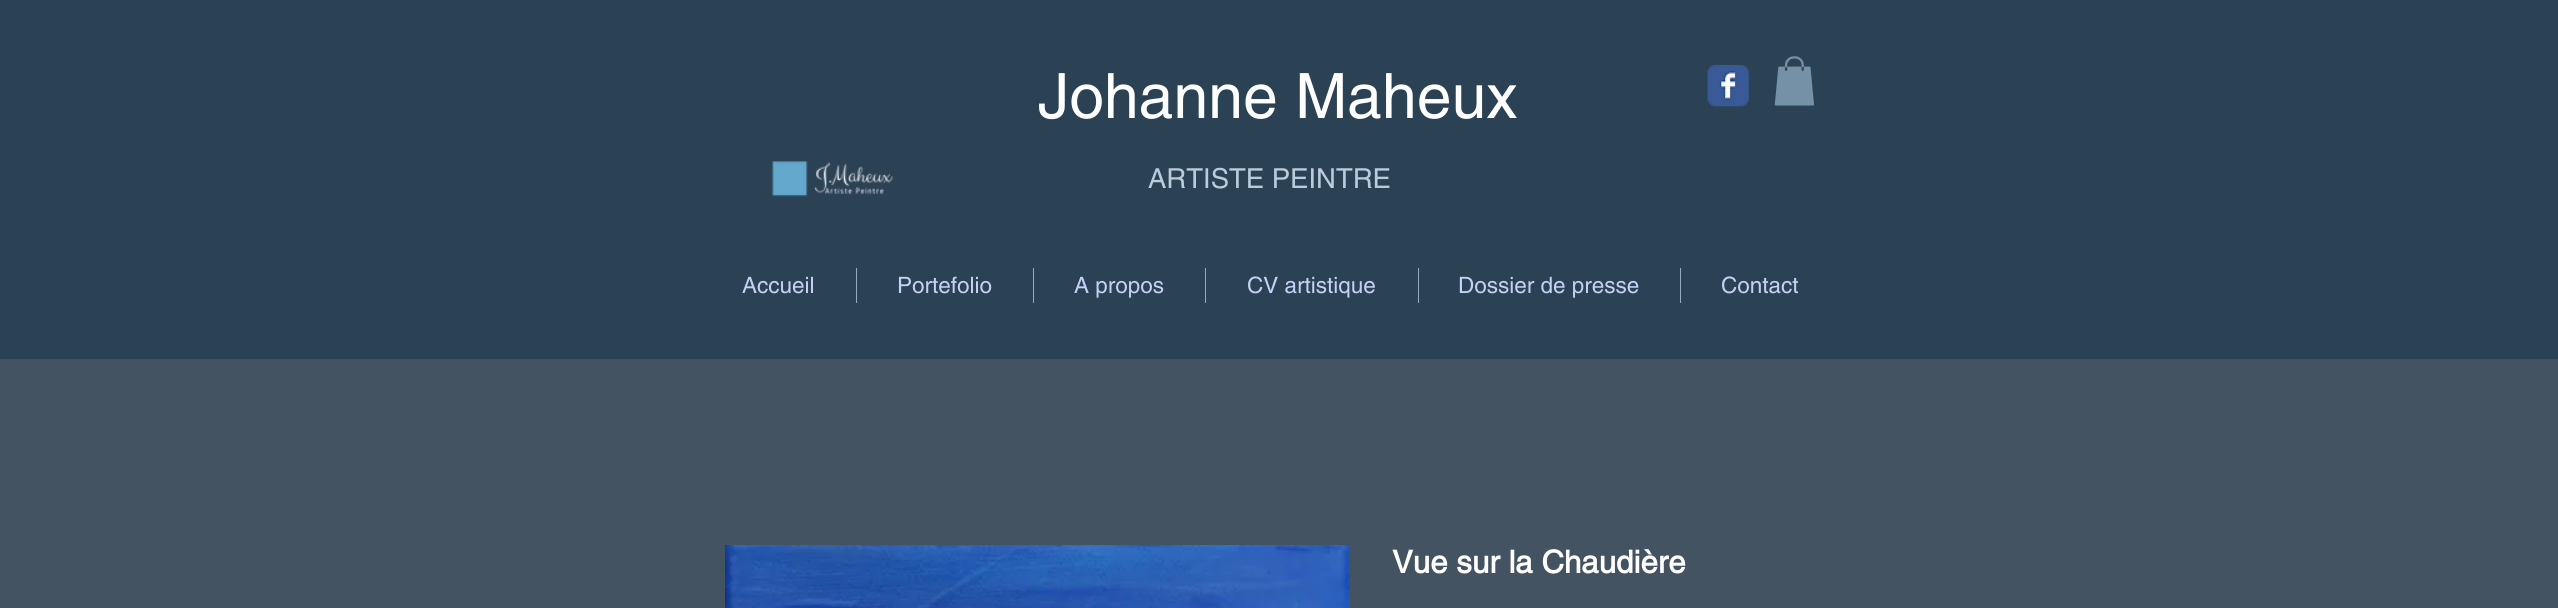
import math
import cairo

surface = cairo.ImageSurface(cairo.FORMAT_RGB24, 2558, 608)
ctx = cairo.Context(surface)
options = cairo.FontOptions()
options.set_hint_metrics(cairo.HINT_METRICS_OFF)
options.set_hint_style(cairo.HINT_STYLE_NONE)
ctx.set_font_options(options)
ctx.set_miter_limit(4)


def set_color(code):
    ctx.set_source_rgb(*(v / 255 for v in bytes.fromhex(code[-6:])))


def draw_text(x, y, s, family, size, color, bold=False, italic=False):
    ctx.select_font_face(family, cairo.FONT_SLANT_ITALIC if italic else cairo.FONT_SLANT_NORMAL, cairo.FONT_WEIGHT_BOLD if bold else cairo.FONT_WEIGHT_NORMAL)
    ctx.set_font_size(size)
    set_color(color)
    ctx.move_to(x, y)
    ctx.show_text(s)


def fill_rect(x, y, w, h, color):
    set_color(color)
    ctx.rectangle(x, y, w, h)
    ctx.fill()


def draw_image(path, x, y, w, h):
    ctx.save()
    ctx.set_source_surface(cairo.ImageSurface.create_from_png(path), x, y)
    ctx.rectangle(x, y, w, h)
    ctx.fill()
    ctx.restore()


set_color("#435361")
ctx.paint()
fill_rect(0, 0, 2558, 359, "#2b4154")
draw_text(1038, 118, "Johanne Maheux", "helvetica", 62.5, "#ffffff")
draw_image("assets/img1.png", 1707, 65, 42, 42)
draw_image("assets/img2.png", 1774, 56, 40, 50)
draw_image("assets/img3.png", 772, 161, 122, 36)
draw_text(1148, 188, "ARTISTE PEINTRE", "helvetica", 27.5, "#baccda")
draw_text(742, 293, "Accueil", "helvetica", 22.5, "#c4d1f5")
fill_rect(856, 268, 1, 35, "#97abba")
draw_text(897, 293, "Portefolio", "helvetica", 22.5, "#c4d1f5")
fill_rect(1033, 268, 1, 35, "#97abba")
draw_text(1074, 293, "A propos", "helvetica", 22.5, "#c4d1f5")
fill_rect(1205, 268, 1, 35, "#97abba")
draw_text(1247, 293, "CV artistique", "helvetica", 22.5, "#c4d1f5")
fill_rect(1418, 268, 1, 35, "#97abba")
draw_text(1458, 293, "Dossier de presse", "helvetica", 22.5, "#c4d1f5")
fill_rect(1680, 268, 1, 35, "#97abba")
draw_text(1721, 293, "Contact", "helvetica", 22.5, "#c4d1f5")
draw_image("assets/img4.png", 725, 545, 625, 63)
draw_text(1392, 573, "Vue sur la Chaudière", "helvetica", 31.25, "#ffffff", bold=True)
surface.write_to_png("output.png")
